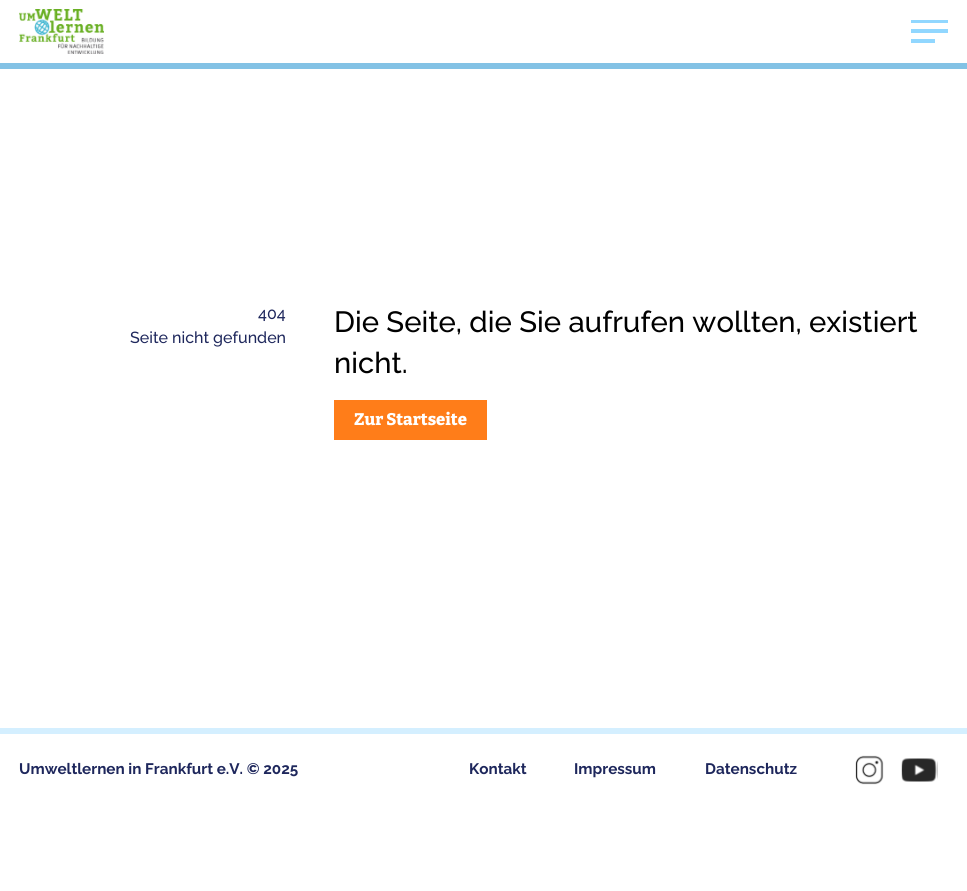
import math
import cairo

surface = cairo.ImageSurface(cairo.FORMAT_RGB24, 967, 891)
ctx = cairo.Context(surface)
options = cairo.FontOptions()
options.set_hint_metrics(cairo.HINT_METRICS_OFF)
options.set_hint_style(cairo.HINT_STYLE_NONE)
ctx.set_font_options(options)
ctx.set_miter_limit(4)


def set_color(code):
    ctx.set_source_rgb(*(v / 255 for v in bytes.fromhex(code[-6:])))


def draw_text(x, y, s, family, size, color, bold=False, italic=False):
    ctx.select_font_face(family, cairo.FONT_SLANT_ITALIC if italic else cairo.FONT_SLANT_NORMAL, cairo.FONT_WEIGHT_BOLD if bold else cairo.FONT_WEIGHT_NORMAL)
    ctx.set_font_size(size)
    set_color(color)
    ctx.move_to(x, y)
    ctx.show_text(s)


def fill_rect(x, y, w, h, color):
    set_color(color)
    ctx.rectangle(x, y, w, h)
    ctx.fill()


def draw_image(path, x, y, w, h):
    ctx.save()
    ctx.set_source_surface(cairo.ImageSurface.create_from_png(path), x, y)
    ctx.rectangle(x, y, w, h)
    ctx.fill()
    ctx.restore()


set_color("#ffffff")
ctx.paint()
ctx.rectangle(-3, -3, 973, 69)
set_color("#83c2e5")
ctx.set_line_width(6)
ctx.stroke()
draw_image("assets/img1.png", 19, 9, 85, 45)
fill_rect(911, 20, 37, 3, "#91d7ff")
fill_rect(911, 29, 37, 4, "#91d7ff")
fill_rect(911, 39, 24, 4, "#91d7ff")
draw_text(258, 319, "404", "Raleway Thin", 16, "#1e275c")
draw_text(130, 343, "Seite nicht gefunden", "Raleway Thin", 16, "#1e275c")
draw_text(334, 332, "Die Seite, die Sie aufrufen wollten, existiert", "Raleway Thin", 29.25, "#000000")
draw_text(334, 373, "nicht.", "Raleway Thin", 29.25, "#000000")
fill_rect(334, 400, 153, 40, "#ff7d19")
draw_text(354, 425, "Zur Startseite", "Bitter Thin", 16.75, "#ffffff")
fill_rect(0, 728, 967, 6, "#d4efff")
draw_text(19, 774, "Umweltlernen in Frankfurt e.V. © 2025", "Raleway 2 Thin", 15.25, "#1e275c")
draw_text(469, 774, "Kontakt", "Raleway 2 Thin", 15.25, "#1e275c")
draw_text(574, 774, "Impressum", "Raleway 2 Thin", 15.25, "#1e275c")
draw_text(705, 774, "Datenschutz", "Raleway 2 Thin", 15.25, "#1e275c")
draw_image("assets/img2.png", 855, 755, 29, 30)
draw_image("assets/img3.png", 901, 758, 37, 24)
surface.write_to_png("output.png")
